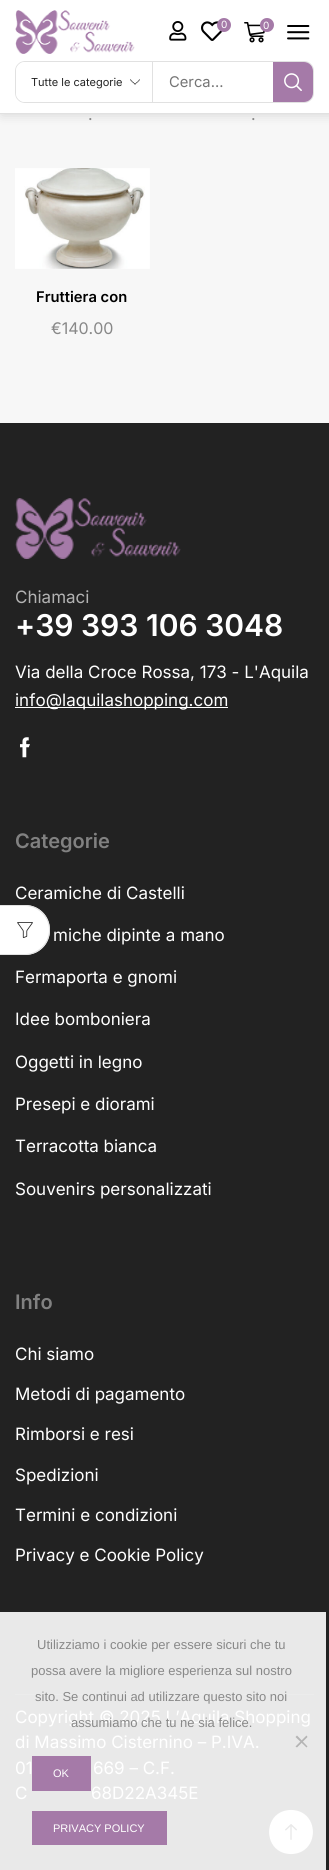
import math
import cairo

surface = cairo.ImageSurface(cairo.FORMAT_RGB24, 329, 1870)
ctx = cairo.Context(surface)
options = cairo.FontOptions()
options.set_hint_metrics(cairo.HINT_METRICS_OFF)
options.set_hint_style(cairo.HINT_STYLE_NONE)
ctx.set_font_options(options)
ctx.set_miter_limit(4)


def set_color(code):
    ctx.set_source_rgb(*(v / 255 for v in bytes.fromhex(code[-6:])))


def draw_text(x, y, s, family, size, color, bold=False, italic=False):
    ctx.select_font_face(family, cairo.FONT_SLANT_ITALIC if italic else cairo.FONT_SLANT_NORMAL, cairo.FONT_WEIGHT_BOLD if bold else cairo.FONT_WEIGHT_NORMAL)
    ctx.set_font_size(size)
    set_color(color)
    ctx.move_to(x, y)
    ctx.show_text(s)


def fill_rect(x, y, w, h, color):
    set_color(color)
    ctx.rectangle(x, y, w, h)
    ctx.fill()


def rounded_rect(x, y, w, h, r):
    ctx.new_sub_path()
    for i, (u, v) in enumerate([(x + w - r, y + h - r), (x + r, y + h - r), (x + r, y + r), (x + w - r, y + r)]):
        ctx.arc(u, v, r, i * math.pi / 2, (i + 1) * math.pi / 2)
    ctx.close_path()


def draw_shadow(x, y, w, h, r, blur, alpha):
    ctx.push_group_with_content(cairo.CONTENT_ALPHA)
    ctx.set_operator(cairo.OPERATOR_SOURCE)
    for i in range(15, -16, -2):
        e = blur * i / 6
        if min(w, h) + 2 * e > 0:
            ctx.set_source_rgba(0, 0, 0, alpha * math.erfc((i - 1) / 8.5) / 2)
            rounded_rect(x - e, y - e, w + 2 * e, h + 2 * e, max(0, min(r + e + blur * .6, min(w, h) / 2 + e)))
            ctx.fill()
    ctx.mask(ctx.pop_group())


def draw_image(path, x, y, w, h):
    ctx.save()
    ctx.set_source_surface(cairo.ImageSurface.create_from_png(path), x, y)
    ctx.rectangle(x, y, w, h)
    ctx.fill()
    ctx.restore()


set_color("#222222")
ctx.paint()
fill_rect(0, 114, 329, 309, "#f7f7f7")
set_color("#000000")
draw_shadow(2, 0, 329, 114, 0, 6, 0.15)
fill_rect(0, 0, 329, 113, "#ffffff")
fill_rect(0, 113, 329, 1, "#e1e1e1")
draw_image("assets/img1.png", 15, 10, 120, 44)
draw_image("assets/img2.png", 169, 21, 18, 20)
draw_image("assets/img3.png", 201, 21, 22, 20)
set_color("#a57aa8")
ctx.arc(224, 25, 7, 0, 2 * math.pi)
ctx.fill()
draw_text(221, 28, "0", "Inter", 10, "#ffffff")
draw_image("assets/img4.png", 244, 22, 21, 21)
set_color("#a57aa8")
ctx.arc(267, 25, 7, 0, 2 * math.pi)
ctx.fill()
draw_text(263, 29, "0", "Inter", 10, "#ffffff")
draw_image("assets/img5.png", 287, 25, 23, 15)
rounded_rect(15.5, 61.5, 298, 41, 9.5)
set_color("#e1e1e1")
ctx.set_line_width(1)
ctx.stroke()
set_color("#ffffff")
ctx.new_path()
ctx.move_to(25, 62)
ctx.line_to(152, 62)
ctx.line_to(152, 102)
ctx.line_to(25, 102)
ctx.curve_to(20, 102, 16, 98, 16, 93)
ctx.line_to(16, 71)
ctx.curve_to(16, 66, 20, 62, 25, 62)
ctx.close_path()
ctx.fill()
draw_image("assets/img6.png", 130, 79, 10, 6)
fill_rect(152, 62, 1, 40, "#e1e1e1")
draw_text(31, 86, "Tutte le categorie", "Inter", 11, "#222222")
draw_text(169, 87, "Cerca...", "Inter", 14.75, "#757575")
set_color("#a57aa8")
ctx.new_path()
ctx.move_to(273, 62)
ctx.line_to(304, 62)
ctx.curve_to(309, 62, 313, 66, 313, 71)
ctx.line_to(313, 93)
ctx.curve_to(313, 98, 309, 102, 304, 102)
ctx.line_to(273, 102)
ctx.close_path()
ctx.fill()
draw_image("assets/img7.png", 284, 73, 18, 18)
draw_text(88, 120, ".", "Inter", 16, "#888888")
draw_text(251, 120, ".", "Inter", 16, "#888888")
draw_image("assets/img8.png", 15, 168, 135, 101)
draw_text(36, 302, "Fruttiera con", "Inter SemiBold", 14.75, "#000000")
draw_text(51, 334, "€140.00", "Inter", 16, "#888888")
fill_rect(0, 1612, 326, 258, "#e9e9e9")
set_color("#ffffff")
ctx.new_path()
ctx.arc(291, 1832, 22.5, 0, 2 * math.pi)
ctx.fill_preserve()
set_color("#fcfcfc")
ctx.stroke()
ctx.new_path()
ctx.move_to(291, 1809)
ctx.curve_to(321.5, 1809, 321.5, 1855, 291, 1855)
ctx.curve_to(260.5, 1855, 260.5, 1809, 291, 1809)
set_color("#e9e9e9")
ctx.set_line_width(1.9)
ctx.stroke()
draw_image("assets/img9.png", 285, 1824, 12, 16)
draw_image("assets/img10.png", 15, 498, 166, 61)
draw_text(15, 603, "Chiamaci", "Inter", 17, "#b3b3b3")
draw_text(15, 636, "+39 393 106 3048", "Inter SemiBold", 30, "#ffffff")
draw_text(15, 678, "Via della Croce Rossa, 173 - L'Aquila", "Inter", 17, "#ffffff")
fill_rect(15, 707, 213, 1, "#ffffff")
draw_text(15, 706, "info@laquilashopping.com", "Inter", 17, "#ffffff")
draw_image("assets/img11.png", 20, 737, 10, 21)
draw_text(15, 848, "Categorie", "Inter SemiBold", 20, "#818181")
draw_text(15, 899, "Ceramiche di Castelli", "Inter", 17, "#ffffff")
draw_text(53, 941, "miche dipinte a mano", "Inter", 17, "#ffffff")
draw_text(15, 983, "Fermaporta e gnomi", "Inter", 17, "#ffffff")
draw_text(15, 1025, "Idee bomboniera", "Inter", 17, "#ffffff")
draw_text(15, 1068, "Oggetti in legno", "Inter", 17, "#ffffff")
draw_text(15, 1110, "Presepi e diorami", "Inter", 17, "#ffffff")
draw_text(15, 1152, "Terracotta bianca", "Inter", 17, "#ffffff")
draw_text(15, 1195, "Souvenirs personalizzati", "Inter", 17, "#ffffff")
draw_text(15, 1309, "Info", "Inter SemiBold", 20, "#818181")
draw_text(15, 1360, "Chi siamo", "Inter", 17, "#ffffff")
draw_text(15, 1400, "Metodi di pagamento", "Inter", 17, "#ffffff")
draw_text(15, 1440, "Rimborsi e resi", "Inter", 17, "#ffffff")
draw_text(15, 1481, "Spedizioni", "Inter", 17, "#ffffff")
draw_text(15, 1521, "Termini e condizioni", "Inter", 17, "#ffffff")
draw_text(15, 1561, "Privacy e Cookie Policy", "Inter", 17, "#ffffff")
fill_rect(15, 1694, 299, 1, "#ececec")
draw_text(15, 1723, "Copyright © 2025 L’Aquila Shopping", "Inter", 17, "#ffffff")
draw_text(15, 1748, "di Massimo Cisternino – P.IVA.", "Inter", 17, "#ffffff")
draw_text(15, 1774, "01", "Inter", 17, "#ffffff")
draw_text(93, 1774, "669 – C.F.", "Inter", 17, "#ffffff")
draw_text(15, 1799, "C", "Inter", 17, "#ffffff")
draw_text(91, 1799, "68D22A345E", "Inter", 17, "#ffffff")
ctx.new_path()
ctx.move_to(0, 905)
ctx.line_to(25, 905)
ctx.curve_to(39, 905, 50, 916, 50, 930)
ctx.curve_to(50, 944, 39, 955, 25, 955)
ctx.line_to(0, 955)
ctx.close_path()
ctx.fill()
set_color("#e1e1e1")
ctx.set_fill_rule(cairo.FILL_RULE_EVEN_ODD)
ctx.new_path()
ctx.move_to(0, 905)
ctx.line_to(25, 905)
ctx.curve_to(39, 905, 50, 916, 50, 930)
ctx.curve_to(50, 944, 39, 955, 25, 955)
ctx.line_to(0, 955)
ctx.close_path()
ctx.move_to(0, 906)
ctx.line_to(25, 906)
ctx.curve_to(38, 906, 49, 917, 49, 930)
ctx.curve_to(49, 943, 38, 954, 25, 954)
ctx.line_to(0, 954)
ctx.close_path()
ctx.fill()
draw_image("assets/img12.png", 17, 922, 16, 16)
draw_text(37, 1649, "Utilizziamo i cookie per essere sicuri che tu", "Liberation Sans", 13, "#888888")
draw_text(31, 1675, "possa avere la migliore esperienza sul nostro", "Liberation Sans", 13, "#888888")
draw_text(35, 1701, "sito. Se continui ad utilizzare questo sito noi", "Liberation Sans", 13, "#888888")
draw_text(71, 1727, "assumiamo che tu ne sia felice.", "Liberation Sans", 13, "#888888")
set_color("#b4b4b4")
ctx.set_fill_rule(cairo.FILL_RULE_WINDING)
ctx.new_path()
ctx.move_to(306.5, 1735.5)
ctx.line_to(307.5, 1737)
ctx.line_to(297, 1747.5)
ctx.line_to(295.5, 1746.5)
ctx.close_path()
ctx.fill()
ctx.new_path()
ctx.move_to(295.5, 1737)
ctx.line_to(297, 1735.5)
ctx.line_to(307.5, 1746.5)
ctx.line_to(306.5, 1747.5)
ctx.close_path()
ctx.fill()
fill_rect(32, 1756, 59, 35, "#a57aa8")
draw_text(53, 1777, "OK", "Liberation Sans", 11, "#ffffff")
fill_rect(32, 1811, 135, 34, "#a57aa8")
draw_text(53, 1832, "PRIVACY POLICY", "Liberation Sans", 11, "#ffffff")
surface.write_to_png("output.png")
